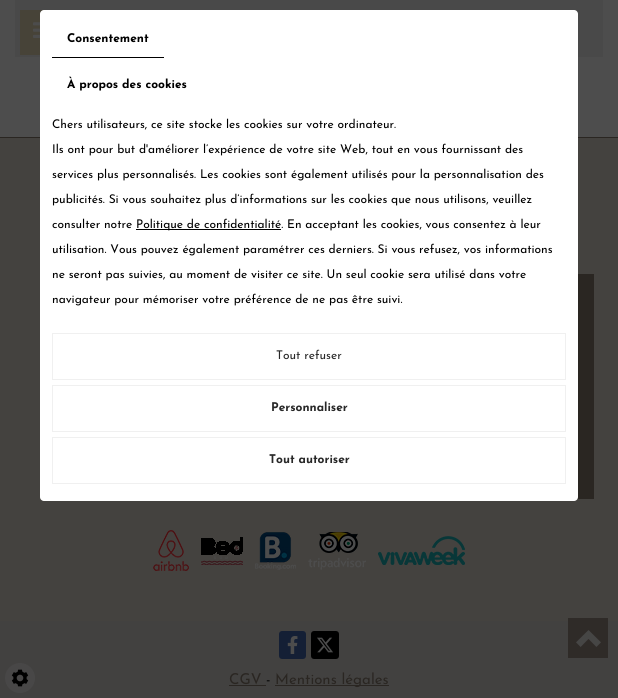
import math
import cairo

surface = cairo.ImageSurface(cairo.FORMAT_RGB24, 618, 698)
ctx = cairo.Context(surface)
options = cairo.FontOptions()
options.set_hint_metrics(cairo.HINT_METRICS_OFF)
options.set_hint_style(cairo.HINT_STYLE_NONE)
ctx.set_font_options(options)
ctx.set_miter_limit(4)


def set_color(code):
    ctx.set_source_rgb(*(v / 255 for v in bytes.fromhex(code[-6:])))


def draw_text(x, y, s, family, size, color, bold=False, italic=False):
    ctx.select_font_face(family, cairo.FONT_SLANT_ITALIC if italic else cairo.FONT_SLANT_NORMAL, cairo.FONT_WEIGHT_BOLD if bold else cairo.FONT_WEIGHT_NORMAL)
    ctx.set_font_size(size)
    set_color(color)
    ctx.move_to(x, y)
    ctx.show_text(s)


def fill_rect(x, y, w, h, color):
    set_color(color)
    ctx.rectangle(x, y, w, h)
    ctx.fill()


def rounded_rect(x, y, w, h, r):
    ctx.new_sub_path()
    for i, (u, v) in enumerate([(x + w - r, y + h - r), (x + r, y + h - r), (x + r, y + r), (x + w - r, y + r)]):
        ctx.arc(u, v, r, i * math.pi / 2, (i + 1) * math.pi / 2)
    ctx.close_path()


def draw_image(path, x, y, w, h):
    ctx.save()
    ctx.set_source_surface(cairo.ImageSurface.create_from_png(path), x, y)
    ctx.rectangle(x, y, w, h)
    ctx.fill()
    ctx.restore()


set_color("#4d4d4d")
ctx.paint()
fill_rect(15, 0, 588, 57, "#494949")
ctx.set_source_rgba(0.278, 0.255, 0.204, 0.8)
ctx.rectangle(20, 10, 24, 45)
ctx.fill()
draw_image("assets/img1.png", 33, 22, 7, 16)
fill_rect(0, 138, 618, 483, "#44423f")
fill_rect(577, 274, 17, 225, "#2a2622")
fill_rect(0, 137, 618, 1, "#2a2622")
set_color("#ffffff")
rounded_rect(40, 10, 538, 491, 4)
ctx.fill()
fill_rect(52, 57, 112, 1, "#000000")
draw_text(67, 42, "Consentement", "Josefin Sans", 12, "#000000", bold=True)
draw_text(67, 88, "À propos des cookies", "Josefin Sans", 12, "#000000", bold=True)
draw_text(52, 128, "Chers utilisateurs, ce site stocke les cookies sur votre ordinateur.", "Josefin Sans", 12, "#000000")
draw_text(52, 153, "Ils ont pour but d'améliorer l’expérience de votre site Web, tout en vous fournissant des", "Josefin Sans", 12, "#000000")
draw_text(52, 178, "services plus personnalisés. Les cookies sont également utilisés pour la personnalisation des", "Josefin Sans", 12, "#000000")
draw_text(52, 203, "publicités. Si vous souhaitez plus d’informations sur les cookies que nous utilisons, veuillez", "Josefin Sans", 12, "#000000")
draw_text(52, 228, "consulter notre", "Josefin Sans", 12, "#000000")
fill_rect(136, 229, 145, 1, "#000000")
draw_text(136, 228, "Politique de confidentialité. En acceptant les cookies, vous consentez à leur", "Josefin Sans", 12, "#000000")
draw_text(52, 253, "utilisation. Vous pouvez également paramétrer ces derniers. Si vous refusez, vos informations", "Josefin Sans", 12, "#000000")
draw_text(52, 278, "ne seront pas suivies, au moment de visiter ce site. Un seul cookie sera utilisé dans votre", "Josefin Sans", 12, "#000000")
draw_text(52, 303, "navigateur pour mémoriser votre préférence de ne pas être suivi.", "Josefin Sans", 12, "#000000")
ctx.rectangle(52.5, 333.5, 513, 46)
set_color("#f0f0f0")
ctx.set_line_width(1)
ctx.stroke()
draw_text(276, 359, "Tout refuser", "Josefin Sans", 12, "#282828")
ctx.rectangle(52.5, 385.5, 513, 46)
set_color("#f0f0f0")
ctx.stroke()
draw_text(271, 411, "Personnaliser", "Josefin Sans", 12, "#282828", bold=True)
ctx.rectangle(52.5, 437.5, 513, 46)
set_color("#f0f0f0")
ctx.stroke()
draw_text(269, 463, "Tout autoriser", "Josefin Sans", 12, "#282828", bold=True)
fill_rect(568, 618, 40, 3, "#2f2b28")
draw_image("assets/img2.png", 153, 530, 36, 41)
draw_image("assets/img3.png", 201, 537, 42, 28)
draw_image("assets/img4.png", 255, 532, 41, 38)
draw_image("assets/img5.png", 308, 532, 58, 38)
draw_image("assets/img6.png", 378, 536, 87, 29)
fill_rect(0, 621, 618, 77, "#424140")
fill_rect(568, 621, 40, 37, "#2f2b28")
draw_image("assets/img7.png", 576, 630, 25, 17)
set_color("#484747")
ctx.arc(20, 678, 15, 0, 2 * math.pi)
ctx.fill()
draw_image("assets/img8.png", 11, 669, 18, 18)
set_color("#141f35")
rounded_rect(279, 631, 27, 28, 3)
ctx.fill()
draw_image("assets/img9.png", 287, 636, 11, 18)
set_color("#000000")
rounded_rect(311, 631, 28, 28, 3)
ctx.fill()
draw_image("assets/img10.png", 317, 637, 16, 16)
draw_text(229, 684, "CGV", "Josefin Sans", 15, "#2a2622")
draw_text(266, 684, "-", "Josefin Sans", 15, "#0c0c0c")
fill_rect(229, 685, 37, 1, "#2a2622")
fill_rect(275, 685, 114, 1, "#2a2622")
draw_text(275, 684, "Mentions légales", "Josefin Sans", 15, "#2a2622")
surface.write_to_png("output.png")
